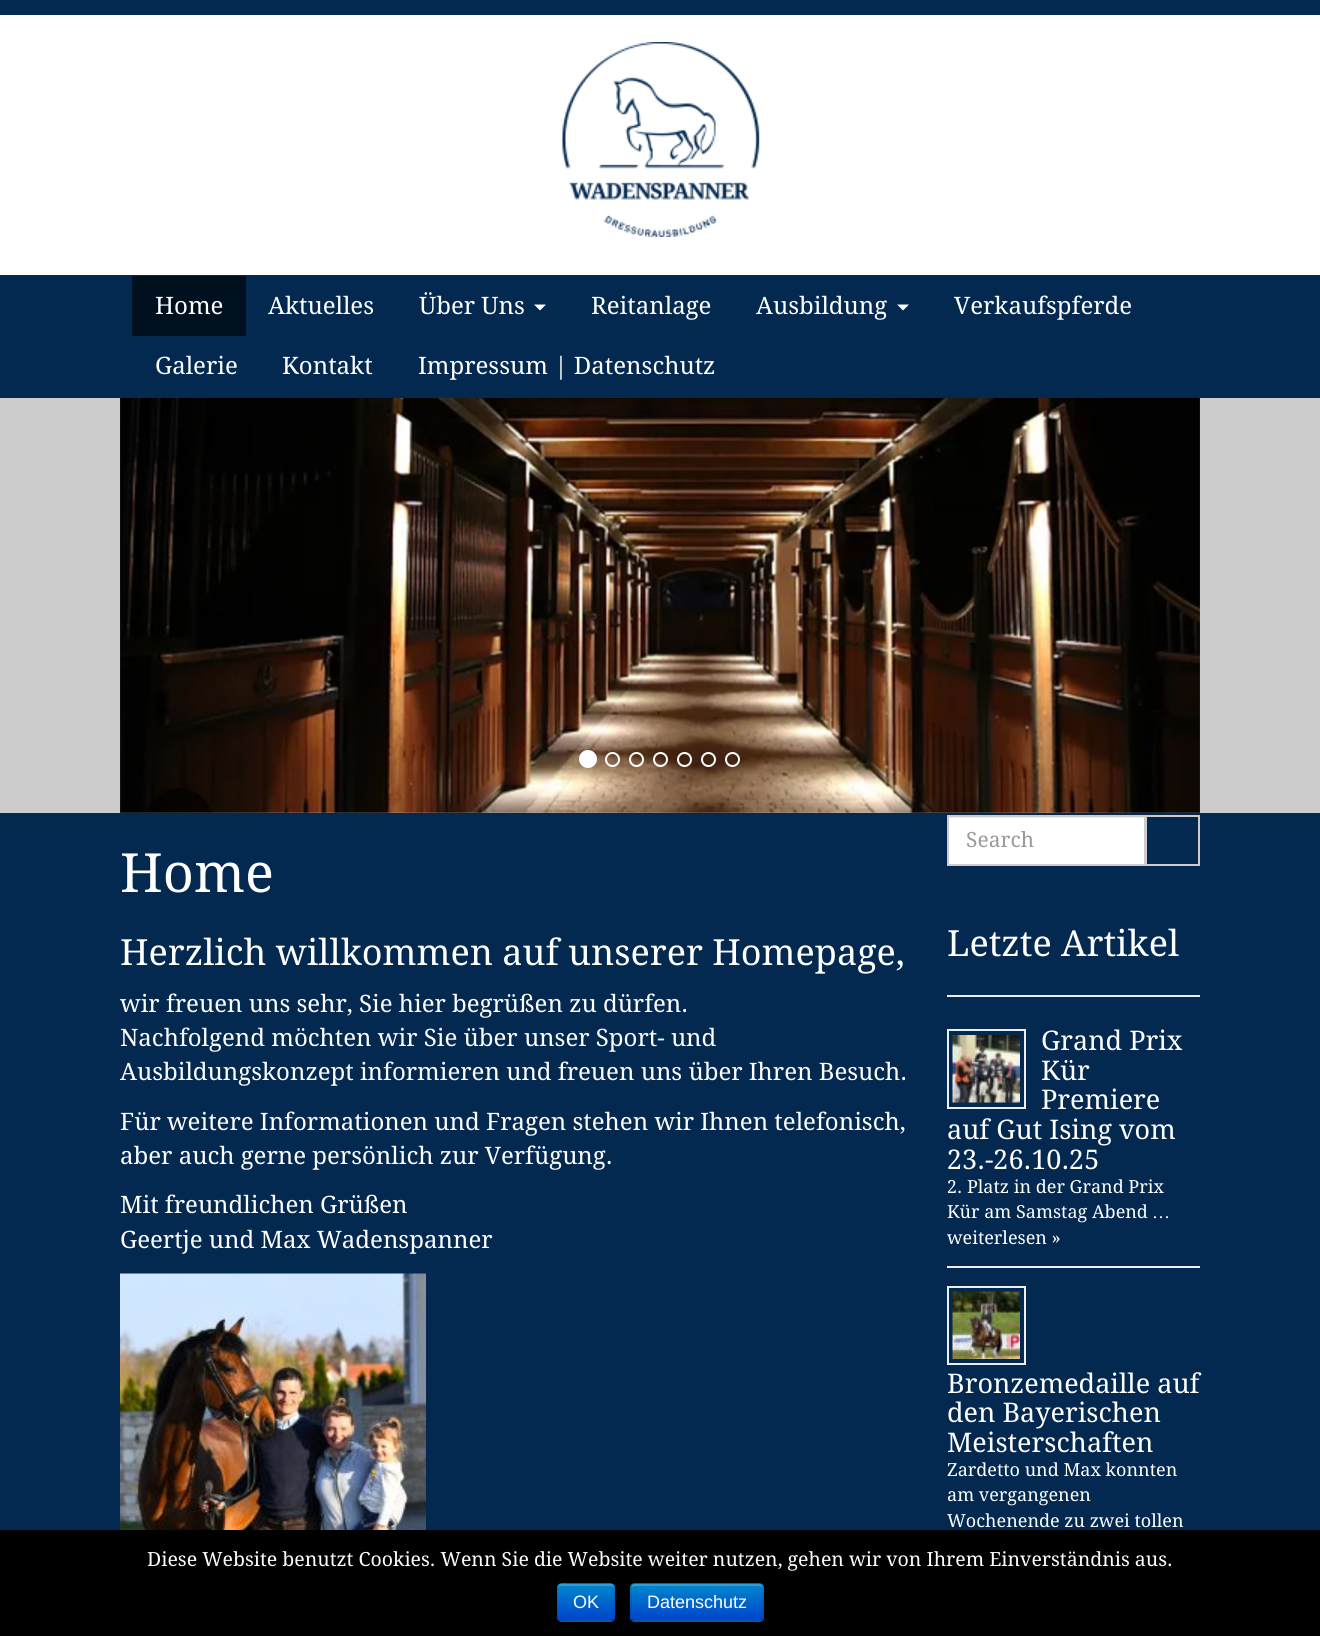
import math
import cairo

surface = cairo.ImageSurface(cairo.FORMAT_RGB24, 1320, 1636)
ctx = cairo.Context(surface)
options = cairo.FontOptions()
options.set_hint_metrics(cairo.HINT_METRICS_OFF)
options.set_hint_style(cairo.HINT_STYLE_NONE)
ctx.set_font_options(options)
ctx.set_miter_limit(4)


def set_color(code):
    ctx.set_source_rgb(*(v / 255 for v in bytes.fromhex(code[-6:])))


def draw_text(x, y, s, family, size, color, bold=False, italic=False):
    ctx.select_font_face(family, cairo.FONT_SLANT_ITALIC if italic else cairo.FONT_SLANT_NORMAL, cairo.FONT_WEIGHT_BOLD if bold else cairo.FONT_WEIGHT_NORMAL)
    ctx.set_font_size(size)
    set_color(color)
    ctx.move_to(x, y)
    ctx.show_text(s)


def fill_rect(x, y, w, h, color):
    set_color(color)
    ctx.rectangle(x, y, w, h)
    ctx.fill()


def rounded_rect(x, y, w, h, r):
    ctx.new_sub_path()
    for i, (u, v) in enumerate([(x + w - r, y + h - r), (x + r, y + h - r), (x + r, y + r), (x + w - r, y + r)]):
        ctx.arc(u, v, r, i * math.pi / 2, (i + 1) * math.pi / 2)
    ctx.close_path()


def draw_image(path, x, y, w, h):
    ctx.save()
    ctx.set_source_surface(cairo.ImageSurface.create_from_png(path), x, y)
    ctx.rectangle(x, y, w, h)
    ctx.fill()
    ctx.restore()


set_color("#032950")
ctx.paint()
fill_rect(0, 15, 1320, 260, "#ffffff")
draw_image("assets/img1.png", 562, 42, 198, 195)
fill_rect(132, 276, 114, 60, "#01101f")
draw_text(155, 314, "Home", "Droid Serif", 24, "#ffffff")
draw_text(268, 314, "Aktuelles", "Droid Serif", 24, "#ffffff")
draw_text(419, 314, "Über Uns", "Droid Serif", 24, "#ffffff")
ctx.new_path()
ctx.move_to(534, 304.5)
ctx.line_to(546, 304.5)
ctx.line_to(540, 310.5)
ctx.close_path()
ctx.fill()
draw_text(591, 314, "Reitanlage", "Droid Serif", 24, "#ffffff")
draw_text(756, 314, "Ausbildung", "Droid Serif", 24, "#ffffff")
ctx.new_path()
ctx.move_to(897, 304.5)
ctx.line_to(909, 304.5)
ctx.line_to(903, 310.5)
ctx.close_path()
ctx.fill()
draw_text(954, 314, "Verkaufspferde", "Droid Serif", 24, "#ffffff")
draw_text(155, 374, "Galerie", "Droid Serif", 24, "#ffffff")
draw_text(282, 374, "Kontakt", "Droid Serif", 24, "#ffffff")
draw_text(418, 374, "Impressum | Datenschutz", "Droid Serif", 24, "#ffffff")
fill_rect(0, 398, 1320, 415, "#cccccc")
draw_image("assets/img2.png", 120, 398, 1080, 415)
gradient = cairo.LinearGradient(120, 605, 282, 605)
gradient.add_color_stop_rgba(0, 0, 0, 0, 0.25)
gradient.add_color_stop_rgba(1, 0, 0, 0, 0)
ctx.set_source(gradient)
ctx.rectangle(120, 398, 138, 415)
ctx.fill()
set_color("#ffffff")
ctx.arc(588, 759, 8, 0, 2 * math.pi)
ctx.fill_preserve()
ctx.stroke()
ctx.arc(612.5, 759.5, 6.5, 0, 2 * math.pi)
ctx.stroke()
ctx.arc(636.5, 759.5, 6.5, 0, 2 * math.pi)
ctx.stroke()
ctx.arc(660.5, 759.5, 6.5, 0, 2 * math.pi)
ctx.stroke()
ctx.arc(684.5, 759.5, 6.5, 0, 2 * math.pi)
ctx.stroke()
ctx.arc(708.5, 759.5, 6.5, 0, 2 * math.pi)
ctx.stroke()
ctx.arc(732.5, 759.5, 6.5, 0, 2 * math.pi)
ctx.stroke()
gradient = cairo.LinearGradient(1038, 605, 1200, 605)
gradient.add_color_stop_rgba(0, 0, 0, 0, 0)
gradient.add_color_stop_rgba(1, 0, 0, 0, 0.25)
ctx.set_source(gradient)
ctx.rectangle(1052, 398, 148, 415)
ctx.fill()
draw_text(120, 892, "Home", "Droid Serif", 54, "#ffffff")
draw_text(120, 965, "Herzlich willkommen auf unserer Homepage,", "Droid Serif", 36, "#ffffff")
draw_text(120, 1012, "wir freuen uns sehr, Sie hier begrüßen zu dürfen.", "Droid Serif", 24, "#ffffff")
draw_text(120, 1046, "Nachfolgend möchten wir Sie über unser Sport- und", "Droid Serif", 24, "#ffffff")
draw_text(120, 1080, "Ausbildungskonzept informieren und freuen uns über Ihren Besuch.", "Droid Serif", 24, "#ffffff")
draw_text(120, 1130, "Für weitere Informationen und Fragen stehen wir Ihnen telefonisch,", "Droid Serif", 24, "#ffffff")
draw_text(120, 1164, "aber auch gerne persönlich zur Verfügung.", "Droid Serif", 24, "#ffffff")
draw_text(120, 1213, "Mit freundlichen Grüßen", "Droid Serif", 24, "#ffffff")
draw_text(120, 1248, "Geertje und Max Wadenspanner", "Droid Serif", 24, "#ffffff")
draw_image("assets/img3.png", 120, 1273, 306, 257)
fill_rect(949, 818, 195, 46, "#ffffff")
fill_rect(948, 817, 197, 1, "#ececec")
ctx.rectangle(1146, 816, 53, 49)
set_color("#cccccc")
ctx.stroke()
ctx.rectangle(948, 816, 197, 49)
ctx.stroke()
draw_text(966, 847, "Search", "Droid Serif", 21, "#999999")
draw_text(947, 956, "Letzte Artikel", "Droid Serif", 36, "#ffffff")
fill_rect(947, 995, 253, 2, "#eeeeee")
fill_rect(947, 1266, 253, 2, "#eeeeee")
ctx.rectangle(948, 1030, 77, 78)
ctx.stroke()
draw_image("assets/img4.png", 952, 1035, 68, 68)
draw_text(1041, 1050, "Grand Prix", "Droid Serif", 27, "#ffffff")
draw_text(1041, 1080, "Kür", "Droid Serif", 27, "#ffffff")
draw_text(1041, 1109, "Premiere", "Droid Serif", 27, "#ffffff")
draw_text(947, 1139, "auf Gut Ising vom", "Droid Serif", 27, "#ffffff")
draw_text(947, 1169, "23.-26.10.25", "Droid Serif", 27, "#ffffff")
draw_text(947, 1193, "2. Platz in der Grand Prix", "Droid Serif", 18, "#ffffff")
draw_text(947, 1218, "Kür am Samstag Abend", "Droid Serif", 18, "#ffffff")
draw_text(1152, 1218, "…", "Liberation Serif", 18, "#ffffff")
draw_text(947, 1244, "weiterlesen »", "Droid Serif", 18, "#ffffff")
ctx.rectangle(948, 1287, 77, 77)
set_color("#eeeeee")
ctx.stroke()
draw_image("assets/img5.png", 952, 1291, 68, 68)
draw_text(947, 1393, "Bronzemedaille auf", "Droid Serif", 27, "#ffffff")
draw_text(947, 1422, "den Bayerischen", "Droid Serif", 27, "#ffffff")
draw_text(947, 1452, "Meisterschaften", "Droid Serif", 27, "#ffffff")
draw_text(947, 1476, "Zardetto und Max konnten", "Droid Serif", 18, "#ffffff")
draw_text(947, 1501, "am vergangenen", "Droid Serif", 18, "#ffffff")
draw_text(947, 1527, "Wochenende zu zwei tollen", "Droid Serif", 18, "#ffffff")
fill_rect(0, 1530, 1320, 106, "#000000")
draw_text(147, 1566, "Diese Website benutzt Cookies. Wenn Sie die Website weiter nutzen, gehen wir von Ihrem Einverständnis aus.", "Droid Serif", 19.5, "#ffffff")
set_color("#006dcc")
rounded_rect(557, 1583, 58, 39, 5)
ctx.fill()
ctx.save()
rounded_rect(557, 1583, 58, 39, 5)
ctx.clip()
gradient = cairo.LinearGradient(586, 1584, 586, 1620)
gradient.add_color_stop_rgba(0, 0, 0.533, 0.8, 1)
gradient.add_color_stop_rgba(1, 0, 0.267, 0.8, 1)
ctx.set_source(gradient)
ctx.rectangle(557, 1584, 58, 36)
ctx.fill()
ctx.restore()
ctx.set_source_rgba(1, 1, 1, 0.2)
ctx.new_path()
ctx.move_to(561, 1586)
ctx.line_to(610, 1586)
ctx.curve_to(612, 1586, 614, 1587, 614, 1588)
ctx.curve_to(614, 1582, 607, 1584, 603, 1584)
ctx.line_to(569, 1584)
ctx.curve_to(565, 1584, 558, 1582, 558, 1588)
ctx.curve_to(558, 1587, 559, 1586, 561, 1586)
ctx.close_path()
ctx.fill()
ctx.new_path()
ctx.move_to(613, 1619.5)
ctx.curve_to(612.5, 1620.5, 611.5, 1621, 610.5, 1621)
ctx.line_to(561, 1621)
ctx.curve_to(560, 1621, 559, 1620.5, 558.5, 1619.5)
ctx.set_source_rgba(0, 0, 0, 0.25)
ctx.set_line_width(1.5)
ctx.stroke()
ctx.new_path()
ctx.move_to(558.5, 1619.5)
ctx.curve_to(557.5, 1619, 557, 1618, 557, 1617)
ctx.line_to(557, 1587)
ctx.curve_to(557, 1586, 557.5, 1585, 558.5, 1584.5)
ctx.curve_to(559, 1583.5, 560, 1583, 561, 1583)
ctx.line_to(610.5, 1583)
ctx.curve_to(611.5, 1583, 612.5, 1583.5, 613, 1584.5)
ctx.curve_to(614, 1585, 614, 1586, 614, 1587)
ctx.line_to(614, 1617)
ctx.curve_to(614, 1618, 614, 1619, 613, 1619.5)
ctx.set_source_rgba(0, 0, 0, 0.1)
ctx.stroke()
draw_text(573, 1608, "OK", "Liberation Sans", 18, "#ffffff")
set_color("#006dcc")
rounded_rect(630, 1583, 134, 39, 5)
ctx.fill()
ctx.save()
rounded_rect(630, 1583, 134, 39, 5)
ctx.clip()
gradient = cairo.LinearGradient(697, 1584, 697, 1620)
gradient.add_color_stop_rgba(0, 0, 0.533, 0.8, 1)
gradient.add_color_stop_rgba(1, 0, 0.267, 0.8, 1)
ctx.set_source(gradient)
ctx.rectangle(630, 1584, 134, 36)
ctx.fill()
ctx.restore()
ctx.set_source_rgba(1, 1, 1, 0.2)
ctx.new_path()
ctx.move_to(634, 1586)
ctx.line_to(759, 1586)
ctx.curve_to(761, 1586, 762, 1587, 762, 1588)
ctx.curve_to(762, 1586, 762, 1584, 760, 1584)
ctx.line_to(634, 1584)
ctx.curve_to(632, 1584, 632, 1586, 632, 1588)
ctx.curve_to(632, 1587, 633, 1586, 634, 1586)
ctx.close_path()
ctx.fill()
ctx.new_path()
ctx.move_to(761.5, 1619.5)
ctx.curve_to(761, 1620.5, 760, 1621, 759, 1621)
ctx.line_to(634.5, 1621)
ctx.curve_to(633.5, 1621, 632.5, 1620.5, 632, 1619.5)
ctx.set_source_rgba(0, 0, 0, 0.25)
ctx.stroke()
ctx.new_path()
ctx.move_to(632, 1619.5)
ctx.curve_to(629.5, 1617, 631, 1609.5, 631, 1607)
ctx.curve_to(631, 1578.5, 625.5, 1583, 655, 1583)
ctx.line_to(738, 1583)
ctx.curve_to(768, 1583, 763, 1578.5, 763, 1607)
ctx.curve_to(763, 1609.5, 764, 1617, 761.5, 1619.5)
ctx.set_source_rgba(0, 0, 0, 0.1)
ctx.stroke()
draw_text(647, 1608, "Datenschutz", "Liberation Sans", 18, "#ffffff")
surface.write_to_png("output.png")
